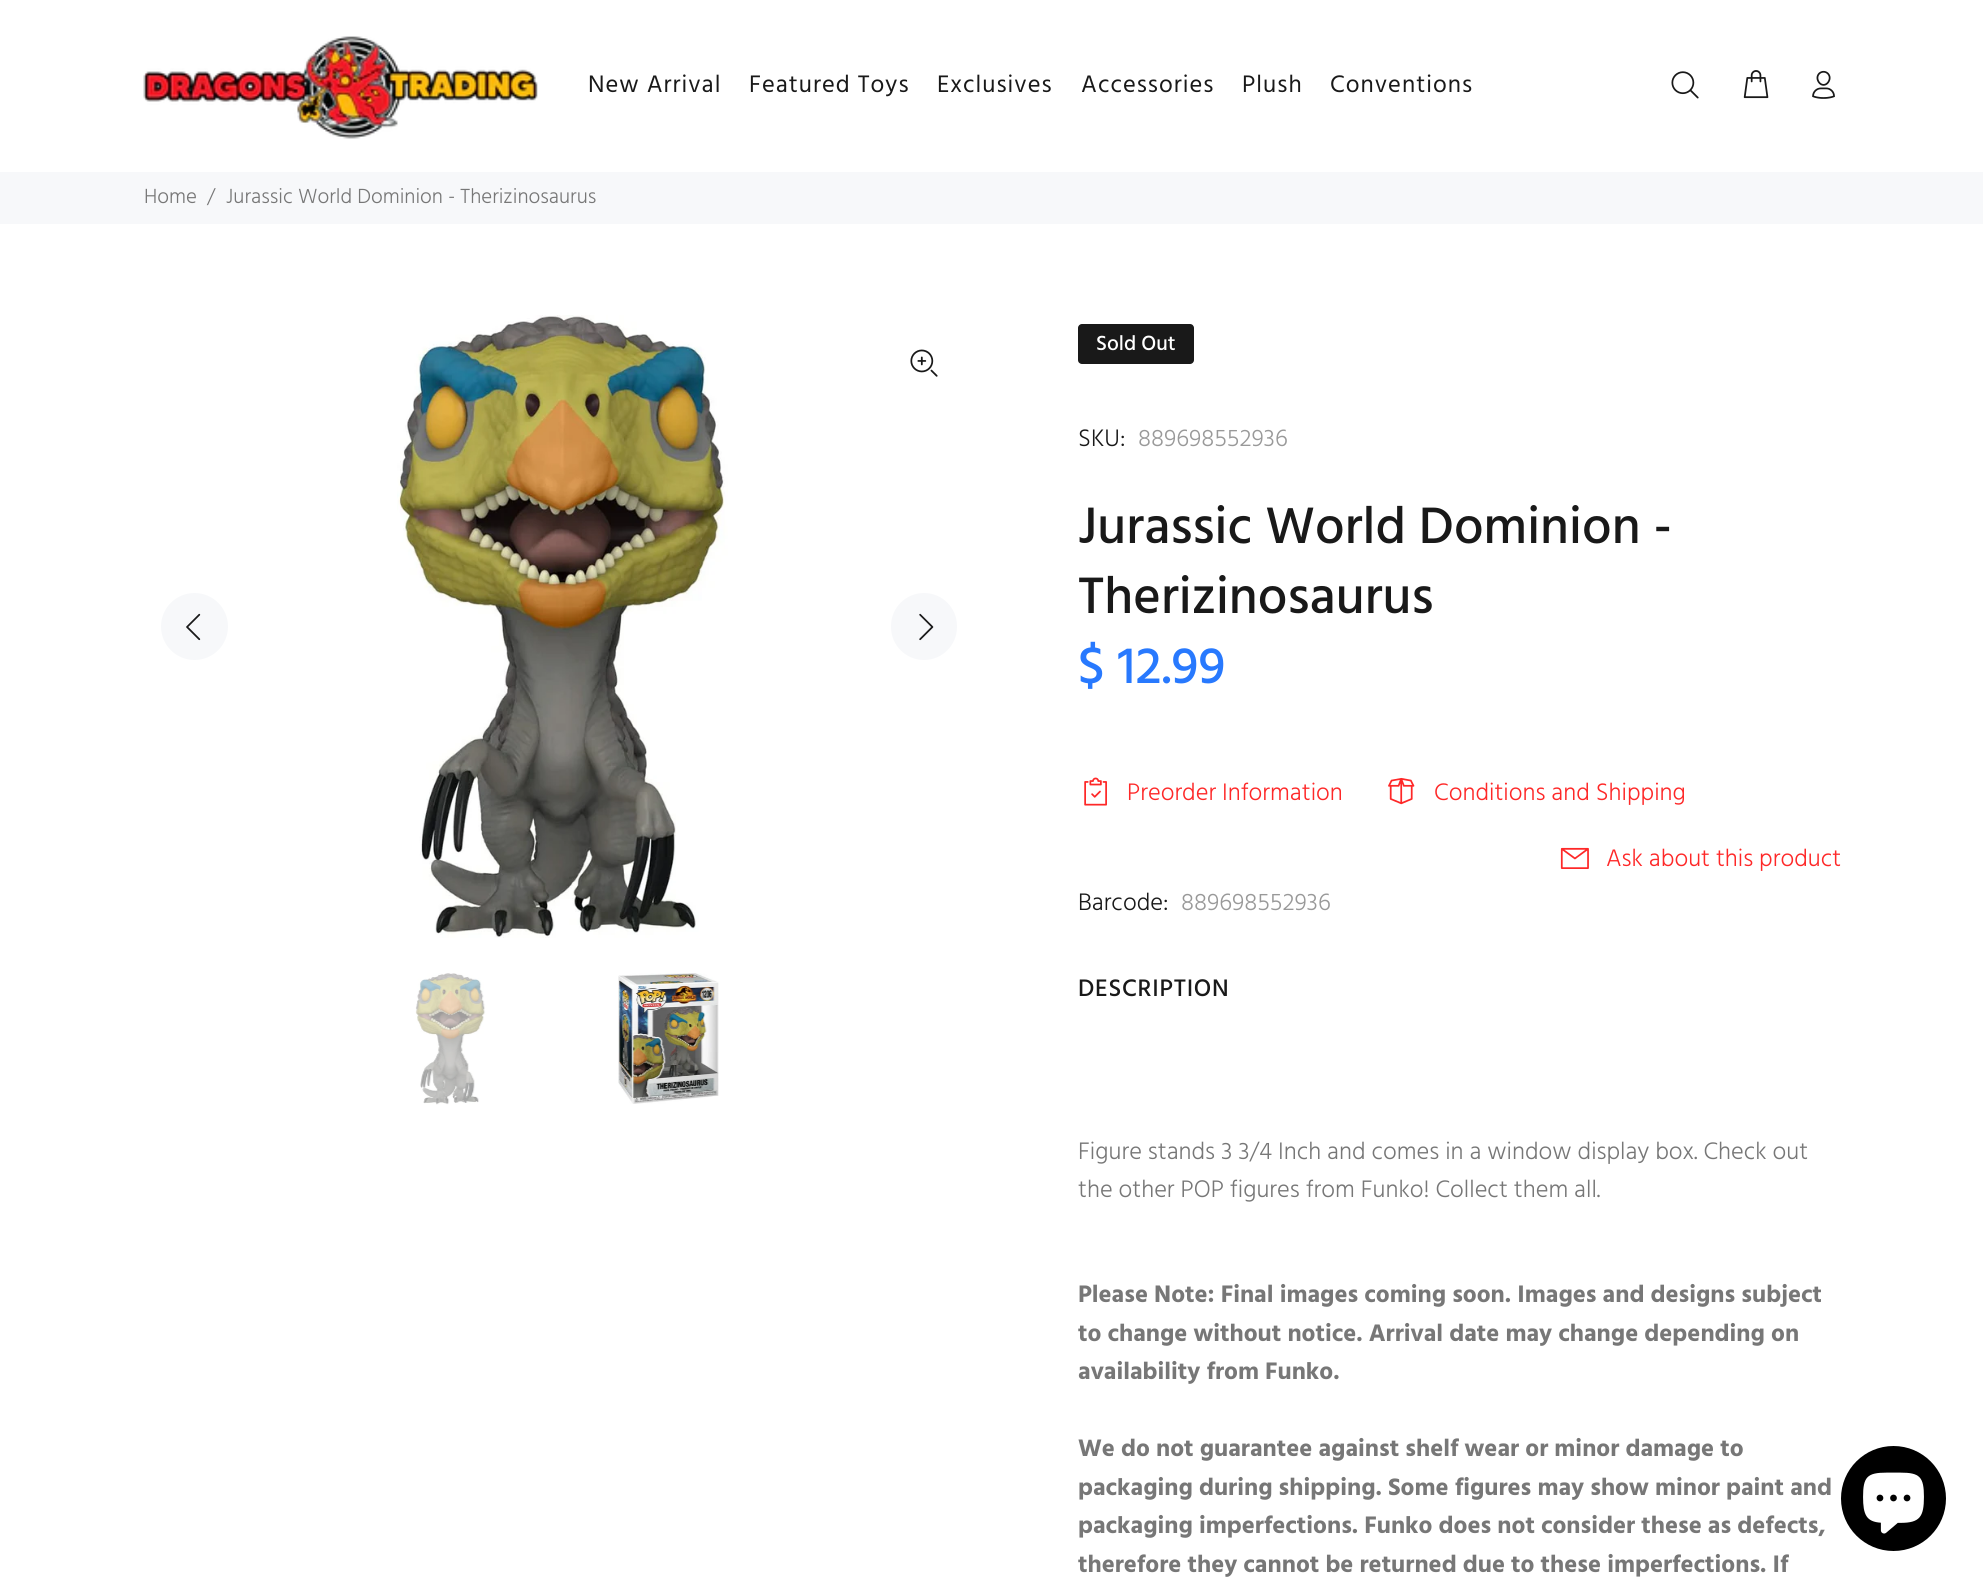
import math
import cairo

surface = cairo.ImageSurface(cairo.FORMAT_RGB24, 1983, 1586)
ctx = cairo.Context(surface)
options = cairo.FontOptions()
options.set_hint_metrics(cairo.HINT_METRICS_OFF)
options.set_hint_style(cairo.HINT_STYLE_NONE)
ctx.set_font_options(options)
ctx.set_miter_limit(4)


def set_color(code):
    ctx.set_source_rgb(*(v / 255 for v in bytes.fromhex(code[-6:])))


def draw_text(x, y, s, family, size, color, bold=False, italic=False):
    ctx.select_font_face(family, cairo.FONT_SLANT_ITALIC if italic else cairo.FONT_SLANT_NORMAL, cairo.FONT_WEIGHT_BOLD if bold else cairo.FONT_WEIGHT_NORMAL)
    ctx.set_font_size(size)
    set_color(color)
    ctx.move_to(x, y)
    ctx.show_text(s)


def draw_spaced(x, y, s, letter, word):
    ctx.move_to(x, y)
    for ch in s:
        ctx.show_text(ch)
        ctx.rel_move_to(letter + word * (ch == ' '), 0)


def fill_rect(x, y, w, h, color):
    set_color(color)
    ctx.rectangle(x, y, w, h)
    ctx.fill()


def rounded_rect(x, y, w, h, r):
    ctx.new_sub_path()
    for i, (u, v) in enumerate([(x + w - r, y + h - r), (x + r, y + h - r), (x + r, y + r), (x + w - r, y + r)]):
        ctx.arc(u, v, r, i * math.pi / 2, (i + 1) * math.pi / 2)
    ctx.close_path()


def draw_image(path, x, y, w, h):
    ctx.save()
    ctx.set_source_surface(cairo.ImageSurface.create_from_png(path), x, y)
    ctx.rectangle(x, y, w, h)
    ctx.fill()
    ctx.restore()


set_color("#ffffff")
ctx.paint()
draw_image("assets/img1.png", 143, 36, 395, 103)
ctx.select_font_face("Hind")
ctx.set_font_size(24.5)
set_color("#191919")
draw_spaced(588, 92, "New Arrival", 1, 0)
draw_spaced(749, 92, "Featured Toys", 1, 0)
draw_spaced(937, 92, "Exclusives", 1, 0)
draw_spaced(1081, 92, "Accessories", 1, 0)
draw_spaced(1242, 92, "Plush", 1, 0)
draw_spaced(1330, 92, "Conventions", 1, 0)
draw_image("assets/img2.png", 1671, 71, 28, 28)
draw_image("assets/img3.png", 1743, 70, 26, 29)
draw_image("assets/img4.png", 1812, 70, 23, 29)
fill_rect(0, 172, 1983, 52, "#f7f8fa")
draw_text(144, 203, "Home", "Hind Light", 21, "#777777")
draw_text(207, 203, "/", "Hind Light", 21, "#777777")
draw_text(226, 203, "Jurassic World Dominion - Therizinosaurus", "Hind Light", 21, "#777777")
draw_image("assets/img5.png", 397, 315, 331, 623)
draw_image("assets/img6.png", 910, 349, 28, 28)
set_color("#f7f8fa")
ctx.arc(194.5, 626.5, 33.5, 0, 2 * math.pi)
ctx.fill()
draw_image("assets/img7.png", 186, 613, 15, 28)
rounded_rect(891, 593, 66, 67, 33)
ctx.fill()
draw_image("assets/img8.png", 919, 613, 15, 28)
draw_image("assets/img9.png", 415, 973, 72, 132)
draw_image("assets/img10.png", 618, 973, 101, 131)
set_color("#191919")
rounded_rect(1078, 324, 116, 40, 4)
ctx.fill()
draw_text(1096, 350, "Sold Out", "Hind Medium", 21, "#ffffff")
draw_text(1078, 446, "SKU:", "Hind Light", 24.5, "#191919")
draw_text(1138, 446, "889698552936", "Hind Light", 24.5, "#999999")
ctx.select_font_face("Hind Medium")
ctx.set_font_size(52.5)
set_color("#191919")
draw_spaced(1078, 543, "Jurassic World Dominion -", 0.05, 0)
draw_spaced(1078, 613, "Therizinosaurus", 0.05, 0)
draw_text(1078, 683, "$ 12.99", "Hind Medium", 52.5, "#2879fe")
draw_image("assets/img11.png", 1084, 777, 23, 29)
draw_text(1127, 800, "Preorder Information", "Hind Light", 24.5, "#fe2828")
draw_image("assets/img12.png", 1388, 777, 27, 28)
draw_text(1434, 800, "Conditions and Shipping", "Hind Light", 24.5, "#fe2828")
draw_image("assets/img13.png", 1560, 847, 29, 22)
draw_text(1606, 866, "Ask about this product", "Hind Light", 24.5, "#fe2828")
draw_text(1078, 910, "Barcode:", "Hind Light", 24.5, "#191919")
draw_text(1181, 910, "889698552936", "Hind Light", 24.5, "#999999")
ctx.select_font_face("Hind Medium")
set_color("#191919")
draw_spaced(1078, 996, "DESCRIPTION", 0.75, 0)
draw_text(1078, 1159, "Figure stands 3 3/4 Inch and comes in a window display box. Check out", "Hind Light", 24.5, "#777777")
draw_text(1078, 1197, "the other POP figures from Funko! Collect them all.", "Hind Light", 24.5, "#777777")
draw_text(1078, 1302, "Please Note: Final images coming soon. Images and designs subject", "Hind", 24.5, "#777777", bold=True)
draw_text(1078, 1341, "to change without notice. Arrival date may change depending on", "Hind", 24.5, "#777777", bold=True)
draw_text(1078, 1379, "availability from Funko.", "Hind", 24.5, "#777777", bold=True)
draw_text(1078, 1456, "We do not guarantee against shelf wear or minor damage to", "Hind", 24.5, "#777777", bold=True)
draw_text(1078, 1495, "packaging during shipping. Some figures may show minor paint and", "Hind", 24.5, "#777777", bold=True)
draw_text(1078, 1533, "packaging imperfections. Funko does not consider these as defects,", "Hind", 24.5, "#777777", bold=True)
draw_text(1078, 1572, "therefore they cannot be returned due to these imperfections. If", "Hind", 24.5, "#777777", bold=True)
set_color("#000000")
ctx.new_path()
ctx.arc(1893.5, 1498.5, 52.5, 0, 2 * math.pi)
ctx.fill()
draw_image("assets/img14.png", 1863, 1472, 61, 62)
surface.write_to_png("output.png")
